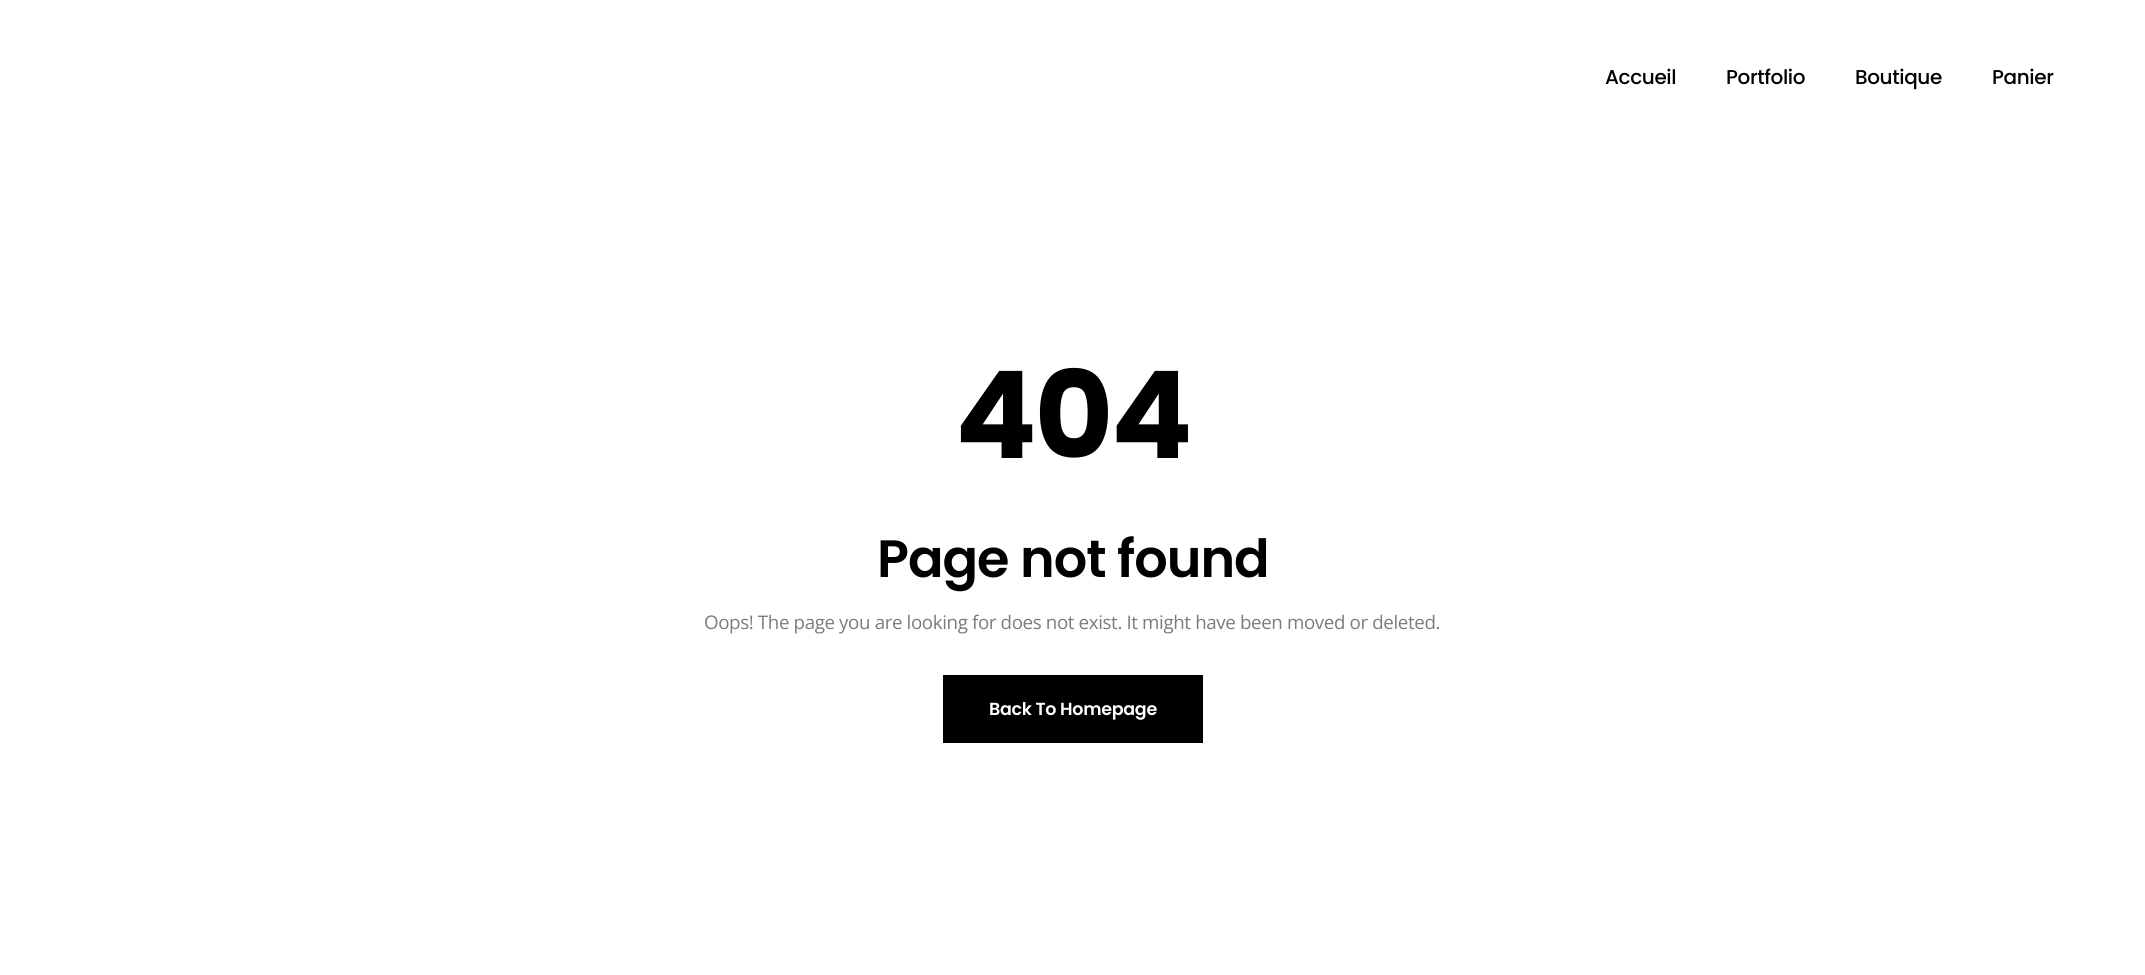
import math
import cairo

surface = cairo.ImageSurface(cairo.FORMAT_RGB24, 2145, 975)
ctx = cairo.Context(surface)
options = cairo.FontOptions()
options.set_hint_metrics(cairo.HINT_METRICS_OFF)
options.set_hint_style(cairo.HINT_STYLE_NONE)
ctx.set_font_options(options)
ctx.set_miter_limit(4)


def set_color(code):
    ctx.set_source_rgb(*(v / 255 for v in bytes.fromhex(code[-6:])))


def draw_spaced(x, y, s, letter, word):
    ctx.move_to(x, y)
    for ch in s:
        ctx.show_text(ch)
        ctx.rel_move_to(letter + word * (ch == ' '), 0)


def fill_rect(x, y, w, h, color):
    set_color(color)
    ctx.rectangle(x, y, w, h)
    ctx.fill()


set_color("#ffffff")
ctx.paint()
ctx.select_font_face("Poppins Medium")
ctx.set_font_size(20)
set_color("#000000")
draw_spaced(1605, 84, "Accueil", -0.38, 0)
draw_spaced(1726, 84, "Portfolio", -0.38, 0)
draw_spaced(1855, 84, "Boutique", -0.38, 0)
draw_spaced(1992, 84, "Panier", -0.38, 0)
ctx.select_font_face("Poppins", cairo.FONT_SLANT_NORMAL, cairo.FONT_WEIGHT_BOLD)
ctx.set_font_size(121)
draw_spaced(955, 458, "404", -2.5, 0)
ctx.select_font_face("Poppins SemiBold")
ctx.set_font_size(52.5)
draw_spaced(877, 577, "Page not found", -1, 0)
ctx.select_font_face("Open Sans")
ctx.set_font_size(18.75)
set_color("#7b7b7b")
draw_spaced(704, 629, "Oops! The page you are looking for does not exist. It might have been moved or deleted.", -0.38, 0)
fill_rect(943, 675, 260, 68, "#000000")
ctx.select_font_face("Poppins SemiBold")
ctx.set_font_size(17.5)
set_color("#ffffff")
draw_spaced(989, 715, "Back To Homepage", -0.3, 0)
surface.write_to_png("output.png")
